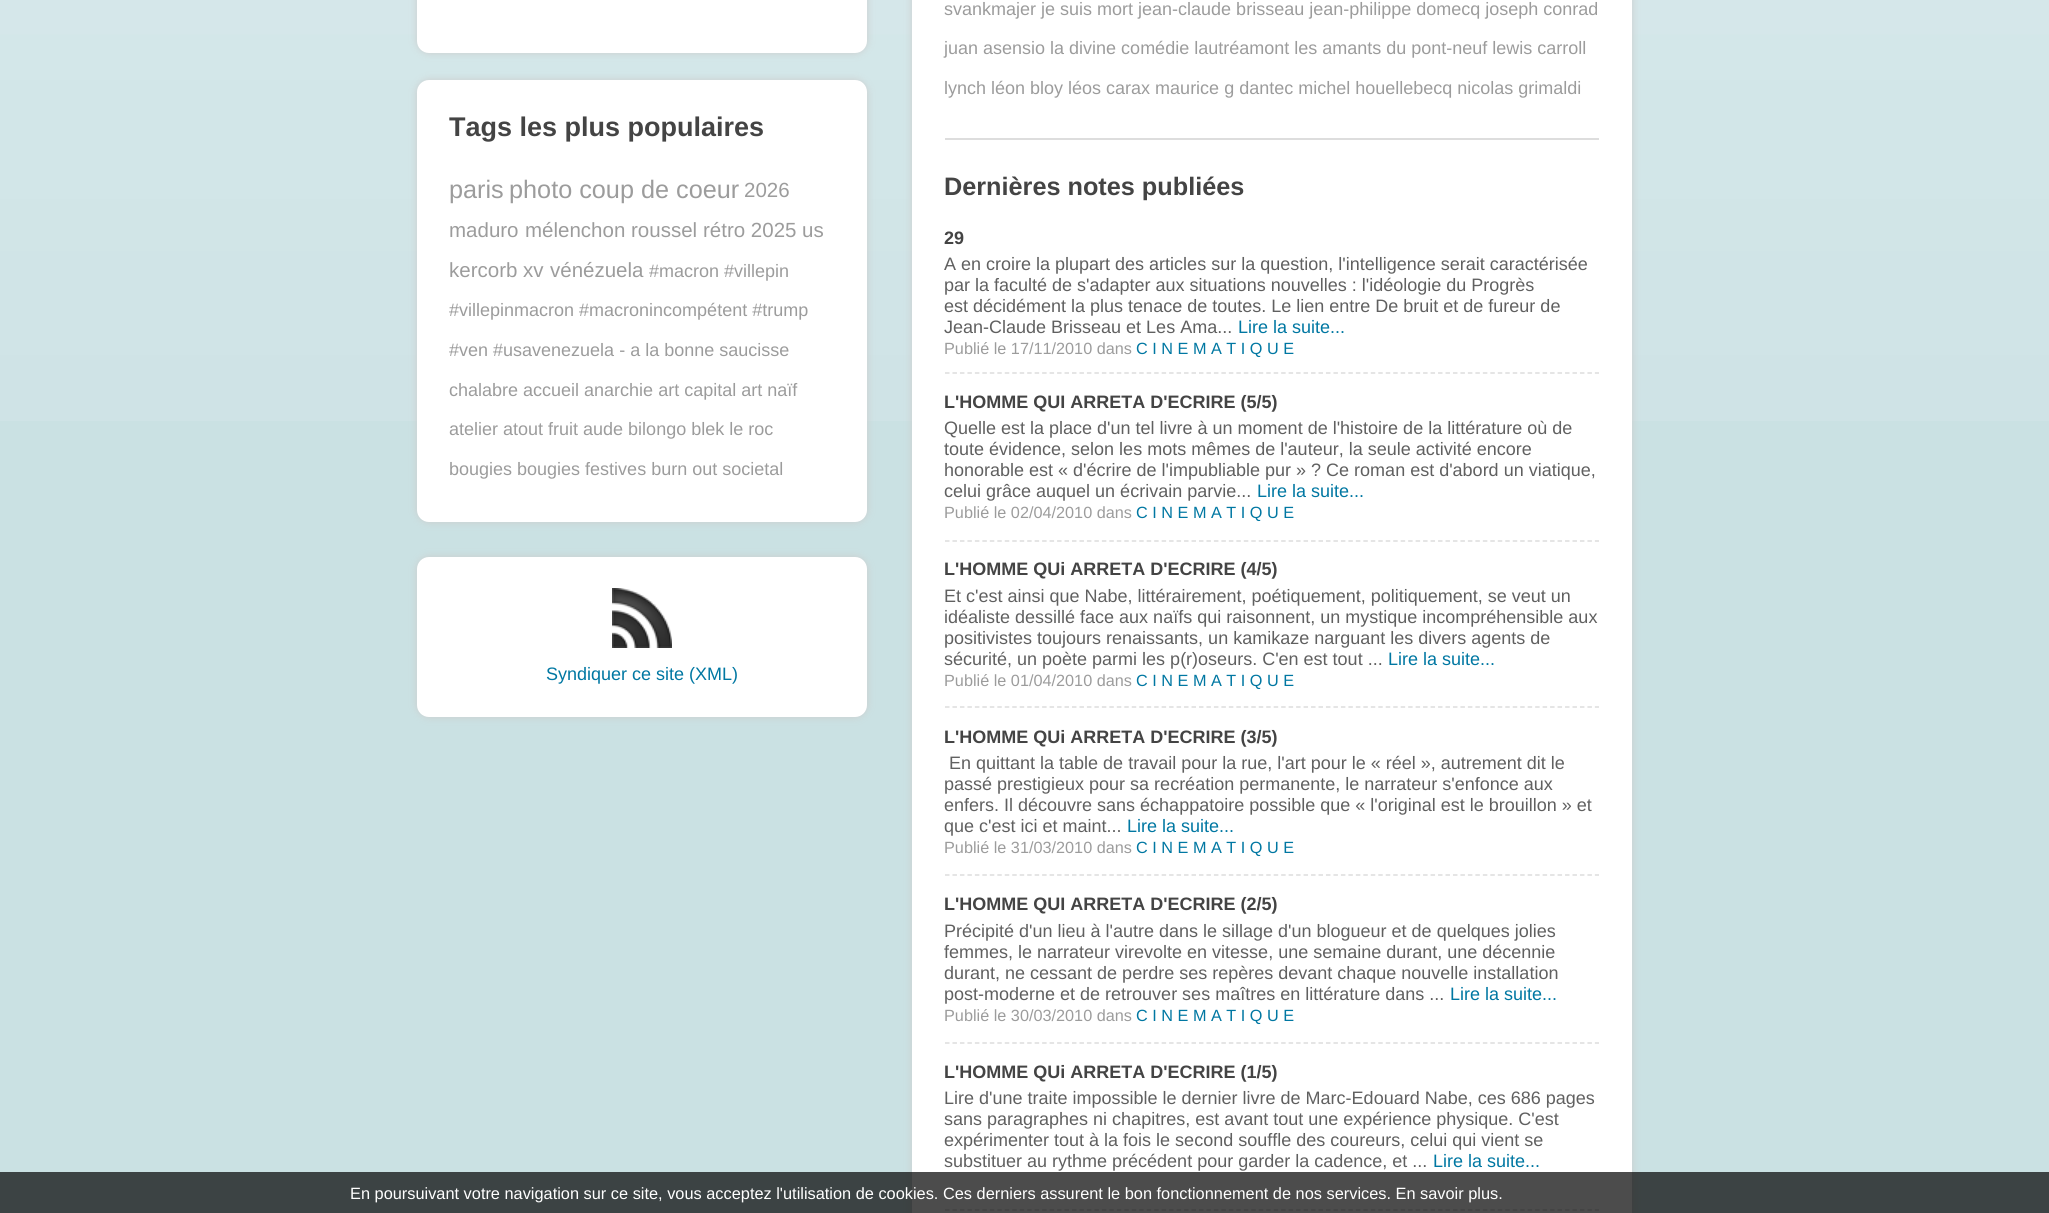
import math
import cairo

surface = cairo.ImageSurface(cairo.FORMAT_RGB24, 2049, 1213)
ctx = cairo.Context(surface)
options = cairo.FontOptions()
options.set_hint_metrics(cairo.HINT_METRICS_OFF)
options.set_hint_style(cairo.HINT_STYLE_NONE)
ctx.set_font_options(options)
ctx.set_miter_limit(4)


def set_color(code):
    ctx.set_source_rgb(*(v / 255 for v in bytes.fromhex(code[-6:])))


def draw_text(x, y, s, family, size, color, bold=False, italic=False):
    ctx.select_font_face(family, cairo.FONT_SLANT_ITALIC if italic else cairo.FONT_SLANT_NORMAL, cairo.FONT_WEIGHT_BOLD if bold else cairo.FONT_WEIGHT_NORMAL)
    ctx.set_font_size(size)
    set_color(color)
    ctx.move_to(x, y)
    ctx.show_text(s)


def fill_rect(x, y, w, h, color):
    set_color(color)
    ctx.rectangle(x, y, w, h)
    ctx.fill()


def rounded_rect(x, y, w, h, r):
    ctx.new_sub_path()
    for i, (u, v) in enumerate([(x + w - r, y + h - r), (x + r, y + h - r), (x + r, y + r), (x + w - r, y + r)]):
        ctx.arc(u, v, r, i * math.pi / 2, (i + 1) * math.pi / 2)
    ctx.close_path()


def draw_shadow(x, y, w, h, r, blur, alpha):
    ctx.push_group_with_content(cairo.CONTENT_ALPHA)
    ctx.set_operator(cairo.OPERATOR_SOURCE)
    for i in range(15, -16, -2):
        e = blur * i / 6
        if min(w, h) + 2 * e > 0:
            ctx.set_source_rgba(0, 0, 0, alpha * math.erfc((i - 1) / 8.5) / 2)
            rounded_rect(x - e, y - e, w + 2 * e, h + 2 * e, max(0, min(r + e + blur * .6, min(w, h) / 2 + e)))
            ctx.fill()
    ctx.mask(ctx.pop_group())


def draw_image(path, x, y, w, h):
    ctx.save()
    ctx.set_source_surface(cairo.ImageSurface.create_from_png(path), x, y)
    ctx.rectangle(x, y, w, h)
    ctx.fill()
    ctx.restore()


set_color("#cae1e3")
ctx.paint()
draw_image("assets/img1.png", 0, 0, 2049, 421)
set_color("#cccccc")
draw_shadow(417, -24, 450, 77, 12, 4, 1)
set_color("#ffffff")
rounded_rect(417, -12, 450, 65, 12)
ctx.fill()
set_color("#cccccc")
draw_shadow(417, 80, 450, 442, 12, 4, 1)
set_color("#ffffff")
rounded_rect(417, 80, 450, 442, 12)
ctx.fill()
draw_text(449, 136, "Tags les plus populaires", "Liberation Sans", 27, "#444444", bold=True)
draw_text(449, 198, "paris", "Liberation Sans", 25.25, "#9c9c9c")
draw_text(509, 198, "photo coup de coeur", "Liberation Sans", 25.25, "#9c9c9c")
draw_text(744, 197, "2026", "Liberation Sans", 20.5, "#9c9c9c")
draw_text(449, 237, "maduro", "Liberation Sans", 20.5, "#9c9c9c")
draw_text(525, 237, "mélenchon", "Liberation Sans", 20.5, "#9c9c9c")
draw_text(631, 237, "roussel", "Liberation Sans", 20.5, "#9c9c9c")
draw_text(703, 237, "rétro 2025", "Liberation Sans", 20.5, "#9c9c9c")
draw_text(802, 237, "us", "Liberation Sans", 20.5, "#9c9c9c")
draw_text(449, 277, "kercorb xv", "Liberation Sans", 20.5, "#9c9c9c")
draw_text(550, 277, "vénézuela", "Liberation Sans", 20.5, "#9c9c9c")
draw_text(649, 277, "#macron #villepin", "Liberation Sans", 18, "#9c9c9c")
draw_text(449, 316, "#villepinmacron #macronincompétent #trump", "Liberation Sans", 18, "#9c9c9c")
draw_text(449, 356, "#ven #usavenezuela - a la bonne saucisse", "Liberation Sans", 18, "#9c9c9c")
draw_text(449, 396, "chalabre accueil anarchie art capital art naïf", "Liberation Sans", 18, "#9c9c9c")
draw_text(449, 435, "atelier atout fruit aude bilongo blek le roc", "Liberation Sans", 18, "#9c9c9c")
draw_text(449, 475, "bougies bougies festives burn out societal", "Liberation Sans", 18, "#9c9c9c")
set_color("#cccccc")
draw_shadow(912, -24, 720, 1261, 12, 4, 1)
fill_rect(912, 0, 720, 1213, "#ffffff")
fill_rect(945, 138, 654, 2, "#dddddd")
draw_text(944, 15, "svankmajer je suis mort jean-claude brisseau jean-philippe domecq joseph conrad", "Liberation Sans", 18, "#9c9c9c")
draw_text(944, 54, "juan asensio la divine comédie lautréamont les amants du pont-neuf lewis carroll", "Liberation Sans", 18, "#9c9c9c")
draw_text(944, 94, "lynch léon bloy léos carax maurice g dantec michel houellebecq nicolas grimaldi", "Liberation Sans", 18, "#9c9c9c")
draw_text(944, 195, "Dernières notes publiées", "Liberation Sans", 25.25, "#444444", bold=True)
ctx.new_path()
ctx.move_to(945, 373)
ctx.line_to(1599, 373)
set_color("#dddddd")
ctx.set_line_width(1.5)
ctx.set_dash([4.5, 2.97])
ctx.stroke()
draw_text(944, 244, "29", "Liberation Sans", 18, "#444444", bold=True)
draw_text(944, 270, "A en croire la plupart des articles sur la question, l'intelligence serait caractérisée", "Liberation Sans", 18, "#606060")
draw_text(944, 291, "par la faculté de s'adapter aux situations nouvelles : l'idéologie du Progrès", "Liberation Sans", 18, "#606060")
draw_text(944, 312, "est décidément la plus tenace de toutes. Le lien entre De bruit et de fureur de", "Liberation Sans", 18, "#606060")
draw_text(944, 333, "Jean-Claude Brisseau et Les Ama...", "Liberation Sans", 18, "#606060")
draw_text(1238, 333, "Lire la suite...", "Liberation Sans", 18, "#0077a2")
draw_text(944, 354, "Publié le 17/11/2010 dans", "Liberation Sans", 16.25, "#9c9c9c")
draw_text(1136, 354, "C I N E M A T I Q U E", "Liberation Sans", 16.25, "#0077a2")
ctx.new_path()
ctx.move_to(945, 541)
ctx.line_to(1599, 541)
set_color("#dddddd")
ctx.stroke()
draw_text(944, 408, "L'HOMME QUI ARRETA D'ECRIRE (5/5)", "Liberation Sans", 18, "#444444", bold=True)
draw_text(944, 434, "Quelle est la place d'un tel livre à un moment de l'histoire de la littérature où de", "Liberation Sans", 18, "#606060")
draw_text(944, 455, "toute évidence, selon les mots mêmes de l'auteur, la seule activité encore", "Liberation Sans", 18, "#606060")
draw_text(944, 476, "honorable est « d'écrire de l'impubliable pur » ? Ce roman est d'abord un viatique,", "Liberation Sans", 18, "#606060")
draw_text(944, 497, "celui grâce auquel un écrivain parvie...", "Liberation Sans", 18, "#606060")
draw_text(1257, 497, "Lire la suite...", "Liberation Sans", 18, "#0077a2")
draw_text(944, 518, "Publié le 02/04/2010 dans", "Liberation Sans", 16.25, "#9c9c9c")
draw_text(1136, 518, "C I N E M A T I Q U E", "Liberation Sans", 16.25, "#0077a2")
ctx.new_path()
ctx.move_to(945, 707)
ctx.line_to(1599, 707)
set_color("#dddddd")
ctx.stroke()
draw_text(944, 575, "L'HOMME QUi ARRETA D'ECRIRE (4/5)", "Liberation Sans", 18, "#444444", bold=True)
draw_text(944, 602, "Et c'est ainsi que Nabe, littérairement, poétiquement, politiquement, se veut un", "Liberation Sans", 18, "#606060")
draw_text(944, 623, "idéaliste dessillé face aux naïfs qui raisonnent, un mystique incompréhensible aux", "Liberation Sans", 18, "#606060")
draw_text(944, 644, "positivistes toujours renaissants, un kamikaze narguant les divers agents de", "Liberation Sans", 18, "#606060")
draw_text(944, 665, "sécurité, un poète parmi les p(r)oseurs. C'en est tout ...", "Liberation Sans", 18, "#606060")
draw_text(1388, 665, "Lire la suite...", "Liberation Sans", 18, "#0077a2")
draw_text(944, 686, "Publié le 01/04/2010 dans", "Liberation Sans", 16.25, "#9c9c9c")
draw_text(1136, 686, "C I N E M A T I Q U E", "Liberation Sans", 16.25, "#0077a2")
ctx.new_path()
ctx.move_to(945, 875)
ctx.line_to(1599, 875)
set_color("#dddddd")
ctx.stroke()
draw_text(944, 743, "L'HOMME QUi ARRETA D'ECRIRE (3/5)", "Liberation Sans", 18, "#444444", bold=True)
draw_text(949, 769, "En quittant la table de travail pour la rue, l'art pour le « réel », autrement dit le", "Liberation Sans", 18, "#606060")
draw_text(944, 790, "passé prestigieux pour sa recréation permanente, le narrateur s'enfonce aux", "Liberation Sans", 18, "#606060")
draw_text(944, 811, "enfers. Il découvre sans échappatoire possible que « l'original est le brouillon » et", "Liberation Sans", 18, "#606060")
draw_text(944, 832, "que c'est ici et maint...", "Liberation Sans", 18, "#606060")
draw_text(1127, 832, "Lire la suite...", "Liberation Sans", 18, "#0077a2")
draw_text(944, 853, "Publié le 31/03/2010 dans", "Liberation Sans", 16.25, "#9c9c9c")
draw_text(1136, 853, "C I N E M A T I Q U E", "Liberation Sans", 16.25, "#0077a2")
ctx.new_path()
ctx.move_to(945, 1043)
ctx.line_to(1599, 1043)
set_color("#dddddd")
ctx.stroke()
draw_text(944, 910, "L'HOMME QUI ARRETA D'ECRIRE (2/5)", "Liberation Sans", 18, "#444444", bold=True)
draw_text(944, 937, "Précipité d'un lieu à l'autre dans le sillage d'un blogueur et de quelques jolies", "Liberation Sans", 18, "#606060")
draw_text(944, 958, "femmes, le narrateur virevolte en vitesse, une semaine durant, une décennie", "Liberation Sans", 18, "#606060")
draw_text(944, 979, "durant, ne cessant de perdre ses repères devant chaque nouvelle installation", "Liberation Sans", 18, "#606060")
draw_text(944, 1000, "post-moderne et de retrouver ses maîtres en littérature dans ...", "Liberation Sans", 18, "#606060")
draw_text(1450, 1000, "Lire la suite...", "Liberation Sans", 18, "#0077a2")
draw_text(944, 1021, "Publié le 30/03/2010 dans", "Liberation Sans", 16.25, "#9c9c9c")
draw_text(1136, 1021, "C I N E M A T I Q U E", "Liberation Sans", 16.25, "#0077a2")
ctx.new_path()
ctx.move_to(945, 1210)
ctx.line_to(1599, 1210)
set_color("#dddddd")
ctx.stroke()
draw_text(944, 1078, "L'HOMME QUi ARRETA D'ECRIRE (1/5)", "Liberation Sans", 18, "#444444", bold=True)
draw_text(944, 1104, "Lire d'une traite impossible le dernier livre de Marc-Edouard Nabe, ces 686 pages", "Liberation Sans", 18, "#606060")
draw_text(944, 1125, "sans paragraphes ni chapitres, est avant tout une expérience physique. C'est", "Liberation Sans", 18, "#606060")
draw_text(944, 1146, "expérimenter tout à la fois le second souffle des coureurs, celui qui vient se", "Liberation Sans", 18, "#606060")
draw_text(944, 1167, "substituer au rythme précédent pour garder la cadence, et ...", "Liberation Sans", 18, "#606060")
draw_text(1433, 1167, "Lire la suite...", "Liberation Sans", 18, "#0077a2")
set_color("#cccccc")
draw_shadow(417, 557, 450, 160, 12, 4, 1)
set_color("#ffffff")
rounded_rect(417, 557, 450, 160, 12)
ctx.fill()
draw_image("assets/img2.png", 612, 588, 60, 60)
draw_text(546, 680, "Syndiquer ce site (XML)", "Liberation Sans", 18, "#0077a2")
ctx.set_source_rgba(0, 0, 0, 0.7)
ctx.rectangle(0, 1172, 2049, 41)
ctx.fill()
draw_text(350, 1199, "En poursuivant votre navigation sur ce site, vous acceptez l'utilisation de cookies. Ces derniers assurent le bon fonctionnement de nos services. En savoir plus.", "Liberation Sans", 16.35, "#ffffff")
surface.write_to_png("output.png")
